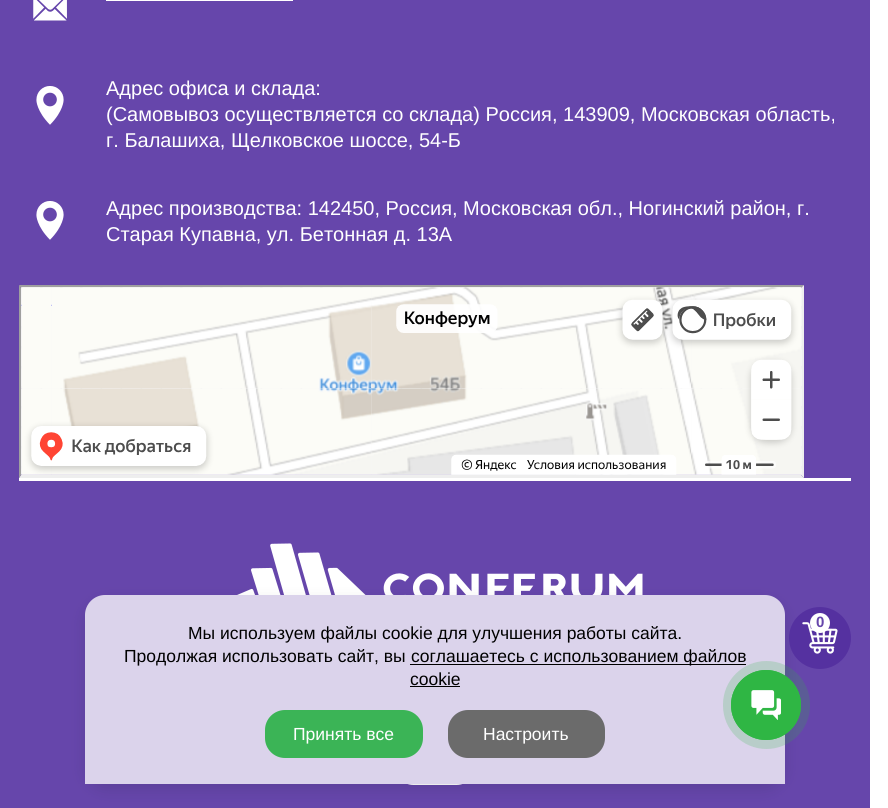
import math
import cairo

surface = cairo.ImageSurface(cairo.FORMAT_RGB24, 888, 808)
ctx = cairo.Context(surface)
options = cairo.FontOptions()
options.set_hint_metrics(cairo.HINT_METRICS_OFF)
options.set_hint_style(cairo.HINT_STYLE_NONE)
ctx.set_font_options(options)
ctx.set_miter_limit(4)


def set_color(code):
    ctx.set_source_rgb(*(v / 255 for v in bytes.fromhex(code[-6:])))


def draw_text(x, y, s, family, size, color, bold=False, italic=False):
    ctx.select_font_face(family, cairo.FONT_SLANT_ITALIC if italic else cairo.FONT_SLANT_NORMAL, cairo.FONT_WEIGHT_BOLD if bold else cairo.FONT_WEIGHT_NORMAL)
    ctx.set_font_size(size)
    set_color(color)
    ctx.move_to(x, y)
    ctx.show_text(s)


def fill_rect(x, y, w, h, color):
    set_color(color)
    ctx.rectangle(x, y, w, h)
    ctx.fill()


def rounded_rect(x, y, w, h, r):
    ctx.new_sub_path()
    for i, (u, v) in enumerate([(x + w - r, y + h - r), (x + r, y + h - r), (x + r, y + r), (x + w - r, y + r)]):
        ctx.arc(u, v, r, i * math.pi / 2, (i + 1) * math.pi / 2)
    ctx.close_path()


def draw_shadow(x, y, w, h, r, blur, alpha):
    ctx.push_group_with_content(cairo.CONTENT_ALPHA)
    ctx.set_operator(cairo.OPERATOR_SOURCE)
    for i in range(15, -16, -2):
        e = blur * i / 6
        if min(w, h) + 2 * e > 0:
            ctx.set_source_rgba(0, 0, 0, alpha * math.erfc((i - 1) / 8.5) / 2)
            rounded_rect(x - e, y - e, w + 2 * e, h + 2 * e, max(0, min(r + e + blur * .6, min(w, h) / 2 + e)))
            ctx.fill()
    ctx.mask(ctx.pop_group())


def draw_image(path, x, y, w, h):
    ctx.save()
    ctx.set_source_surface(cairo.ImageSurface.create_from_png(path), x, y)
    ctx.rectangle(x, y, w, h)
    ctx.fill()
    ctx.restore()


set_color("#ffffff")
ctx.paint()
fill_rect(0, 0, 870, 808, "#6646ab")
draw_image("assets/img1.png", 33, 0, 34, 21)
fill_rect(106, 0, 187, 1, "#ffffff")
draw_image("assets/img2.png", 36, 86, 28, 39)
draw_text(106, 95, "Адрес офиса и склада:", "Liberation Sans", 20, "#ffffff")
draw_text(106, 121, "(Самовывоз осуществляется со склада) Россия, 143909, Московская область,", "Liberation Sans", 20, "#ffffff")
draw_text(106, 147, "г. Балашиха, Щелковское шоссе, 54-Б", "Liberation Sans", 20, "#ffffff")
draw_image("assets/img2.png", 36, 201, 28, 39)
draw_text(106, 215, "Адрес производства: 142450, Россия, Московская обл., Ногинский район, г.", "Liberation Sans", 20, "#ffffff")
draw_text(106, 241, "Старая Купавна, ул. Бетонная д. 13А", "Liberation Sans", 20, "#ffffff")
set_color("#9f9f9f")
ctx.new_path()
ctx.move_to(19, 285)
ctx.line_to(804, 285)
ctx.line_to(801, 288)
ctx.line_to(21, 288)
ctx.close_path()
ctx.fill()
set_color("#eeeeee")
ctx.new_path()
ctx.move_to(804, 285)
ctx.line_to(804, 478)
ctx.line_to(801, 475)
ctx.line_to(801, 288)
ctx.close_path()
ctx.fill()
ctx.new_path()
ctx.move_to(804, 478)
ctx.line_to(19, 478)
ctx.line_to(21, 475)
ctx.line_to(801, 475)
ctx.close_path()
ctx.fill()
set_color("#9f9f9f")
ctx.new_path()
ctx.move_to(19, 478)
ctx.line_to(19, 285)
ctx.line_to(21, 288)
ctx.line_to(21, 475)
ctx.close_path()
ctx.fill()
draw_image("assets/img3.png", 21, 287, 781, 188)
fill_rect(19, 478, 832, 3, "#ffffff")
draw_image("assets/img5.png", 237, 543, 406, 52)
draw_image("assets/img6.png", 407, 784, 56, 1)
set_color("#000000")
draw_shadow(85, 601, 700, 189, 20, 7.5, 0.1)
draw_image("assets/img4.png", 789, 607, 62, 62)
set_color("#ffffff")
ctx.arc(820, 623, 10, 0, 2 * math.pi)
ctx.fill()
draw_text(816, 627, "0", "Liberation Sans", 15, "#6646ab", bold=True)
set_color("#dbd3eb")
ctx.new_path()
ctx.move_to(105, 595)
ctx.line_to(765, 595)
ctx.curve_to(776, 595, 785, 604, 785, 615)
ctx.line_to(785, 784)
ctx.line_to(85, 784)
ctx.line_to(85, 615)
ctx.curve_to(85, 604, 94, 595, 105, 595)
ctx.close_path()
ctx.fill()
draw_text(188, 639, "Мы используем файлы cookie для улучшения работы сайта.", "Liberation Sans", 17.5, "#000000")
draw_text(124, 662, "Продолжая использовать сайт, вы", "Liberation Sans", 17.5, "#000000")
fill_rect(410, 664, 336, 1, "#000000")
draw_text(411, 662, "соглашаетесь с использованием файлов", "Liberation Sans", 17.5, "#000000")
draw_text(410, 685, "cookie", "Liberation Sans", 17.5, "#000000")
fill_rect(410, 686, 50, 1, "#000000")
set_color("#3bb456")
rounded_rect(265, 710, 158, 48, 20)
ctx.fill()
draw_text(293, 740, "Принять все", "Liberation Sans", 17.5, "#ffffff")
set_color("#6b6b6b")
rounded_rect(448, 710, 157, 48, 20)
ctx.fill()
draw_text(483, 740, "Настроить", "Liberation Sans", 17.5, "#ffffff")
ctx.set_source_rgba(0.184, 0.714, 0.267, 0.2)
rounded_rect(723, 661, 87, 88, 43.5)
ctx.fill()
ctx.arc(766, 705, 34.5, 0, 2 * math.pi)
set_color("#2fb644")
ctx.set_line_width(1)
ctx.stroke()
ctx.arc(766, 705, 35, 0, 2 * math.pi)
ctx.fill()
draw_image("assets/img7.png", 751, 690, 30, 30)
surface.write_to_png("output.png")
